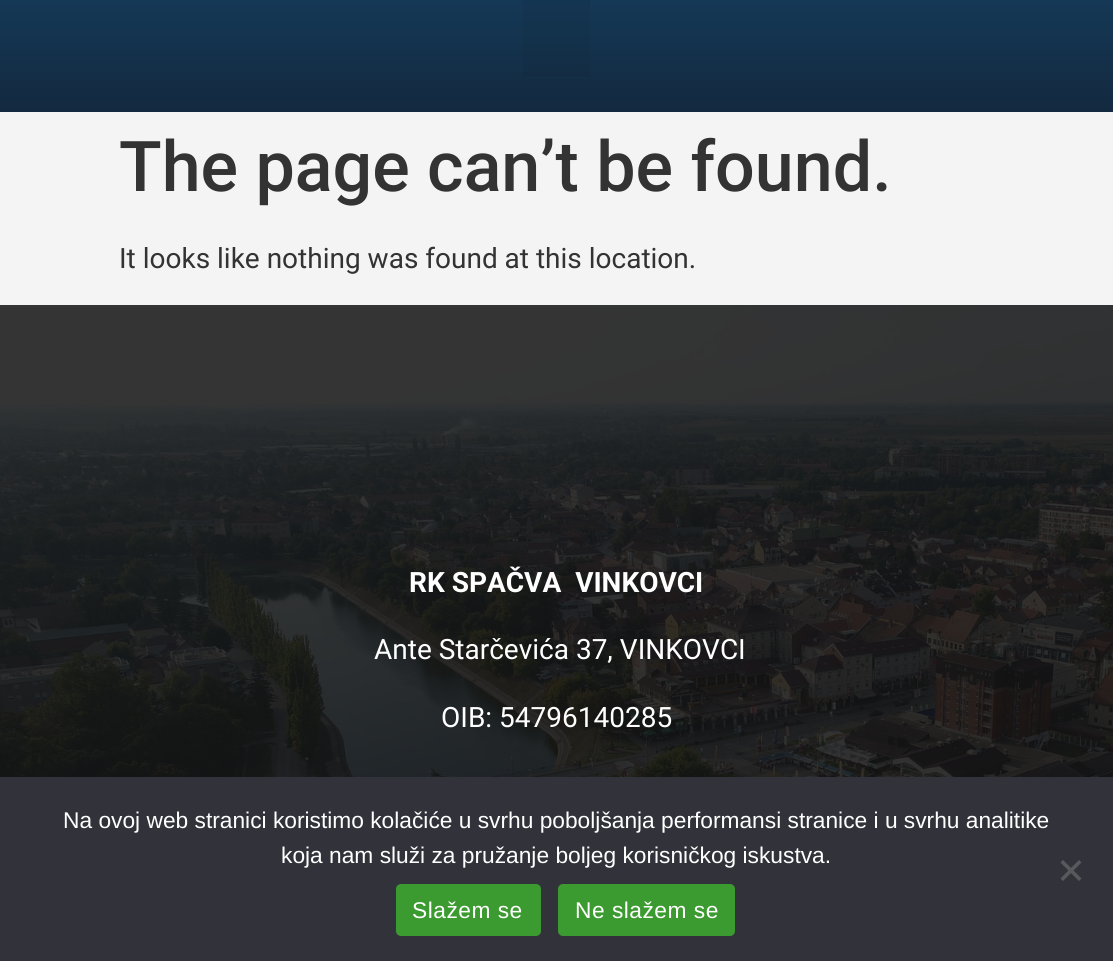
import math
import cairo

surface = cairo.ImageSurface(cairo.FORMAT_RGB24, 1113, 961)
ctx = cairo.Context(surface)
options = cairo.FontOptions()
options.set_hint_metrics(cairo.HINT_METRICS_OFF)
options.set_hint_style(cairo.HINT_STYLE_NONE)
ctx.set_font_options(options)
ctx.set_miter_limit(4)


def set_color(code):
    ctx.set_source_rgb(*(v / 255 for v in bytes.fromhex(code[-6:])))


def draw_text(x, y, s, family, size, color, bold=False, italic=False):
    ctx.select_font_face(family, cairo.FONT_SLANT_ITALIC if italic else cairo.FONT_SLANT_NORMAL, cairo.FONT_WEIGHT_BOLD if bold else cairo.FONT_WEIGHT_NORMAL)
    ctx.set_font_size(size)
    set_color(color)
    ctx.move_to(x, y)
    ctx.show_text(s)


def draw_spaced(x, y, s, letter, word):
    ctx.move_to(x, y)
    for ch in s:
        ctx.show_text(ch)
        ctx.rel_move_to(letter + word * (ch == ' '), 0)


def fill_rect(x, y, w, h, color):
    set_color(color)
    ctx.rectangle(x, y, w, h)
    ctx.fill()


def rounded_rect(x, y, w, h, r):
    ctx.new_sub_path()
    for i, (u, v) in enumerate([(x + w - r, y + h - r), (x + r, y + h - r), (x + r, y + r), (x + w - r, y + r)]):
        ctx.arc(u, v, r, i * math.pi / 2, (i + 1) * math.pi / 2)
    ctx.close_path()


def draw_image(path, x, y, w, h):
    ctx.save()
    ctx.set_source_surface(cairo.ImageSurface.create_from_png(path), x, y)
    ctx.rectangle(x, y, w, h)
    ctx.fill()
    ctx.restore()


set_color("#f4f4f4")
ctx.paint()
gradient = cairo.LinearGradient(557, -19, 557, 112)
gradient.add_color_stop_rgba(0, 0.082, 0.231, 0.353, 1)
gradient.add_color_stop_rgba(1, 0.075, 0.161, 0.247, 1)
ctx.set_source(gradient)
ctx.rectangle(0, 0, 1113, 112)
ctx.fill()
ctx.set_source_rgba(0, 0, 0, 0.05)
ctx.rectangle(523, 0, 67, 77)
ctx.fill()
draw_text(119, 191, "The page can’t be found.", "Roboto Medium", 70, "#333333")
draw_text(119, 268, "It looks like nothing was found at this location.", "Roboto", 28, "#333333")
fill_rect(0, 305, 1113, 472, "#131313")
draw_image("assets/img1.png", 0, 305, 1113, 472)
draw_text(409, 592, "RK SPAČVA  VINKOVCI", "Roboto", 28, "#ffffff", bold=True)
draw_text(374, 659, "Ante Starčevića 37, VINKOVCI", "Roboto", 28, "#ffffff")
draw_text(441, 727, "OIB: 54796140285", "Roboto", 28, "#ffffff")
fill_rect(0, 777, 1113, 184, "#32323a")
draw_text(63, 828, "Na ovoj web stranici koristimo kolačiće u svrhu poboljšanja performansi stranice i u svrhu analitike", "Liberation Sans", 22.75, "#ffffff")
draw_text(281, 863, "koja nam služi za pružanje boljeg korisničkog iskustva.", "Liberation Sans", 22.75, "#ffffff")
set_color("#59595d")
ctx.new_path()
ctx.move_to(1079, 860)
ctx.line_to(1081.5, 862.5)
ctx.line_to(1063, 881)
ctx.line_to(1060.5, 878.5)
ctx.close_path()
ctx.fill()
ctx.new_path()
ctx.move_to(1060.5, 862.5)
ctx.line_to(1063, 860)
ctx.line_to(1081.5, 878.5)
ctx.line_to(1079, 881)
ctx.close_path()
ctx.fill()
set_color("#3c9b30")
rounded_rect(396, 884, 145, 52, 5)
ctx.fill()
set_color("#ffffff")
draw_spaced(412, 918, "Slažem se", 0.5, 0)
set_color("#3c9b30")
rounded_rect(558, 884, 177, 52, 5)
ctx.fill()
set_color("#ffffff")
draw_spaced(575, 918, "Ne slažem se", 0.5, 0)
surface.write_to_png("output.png")
